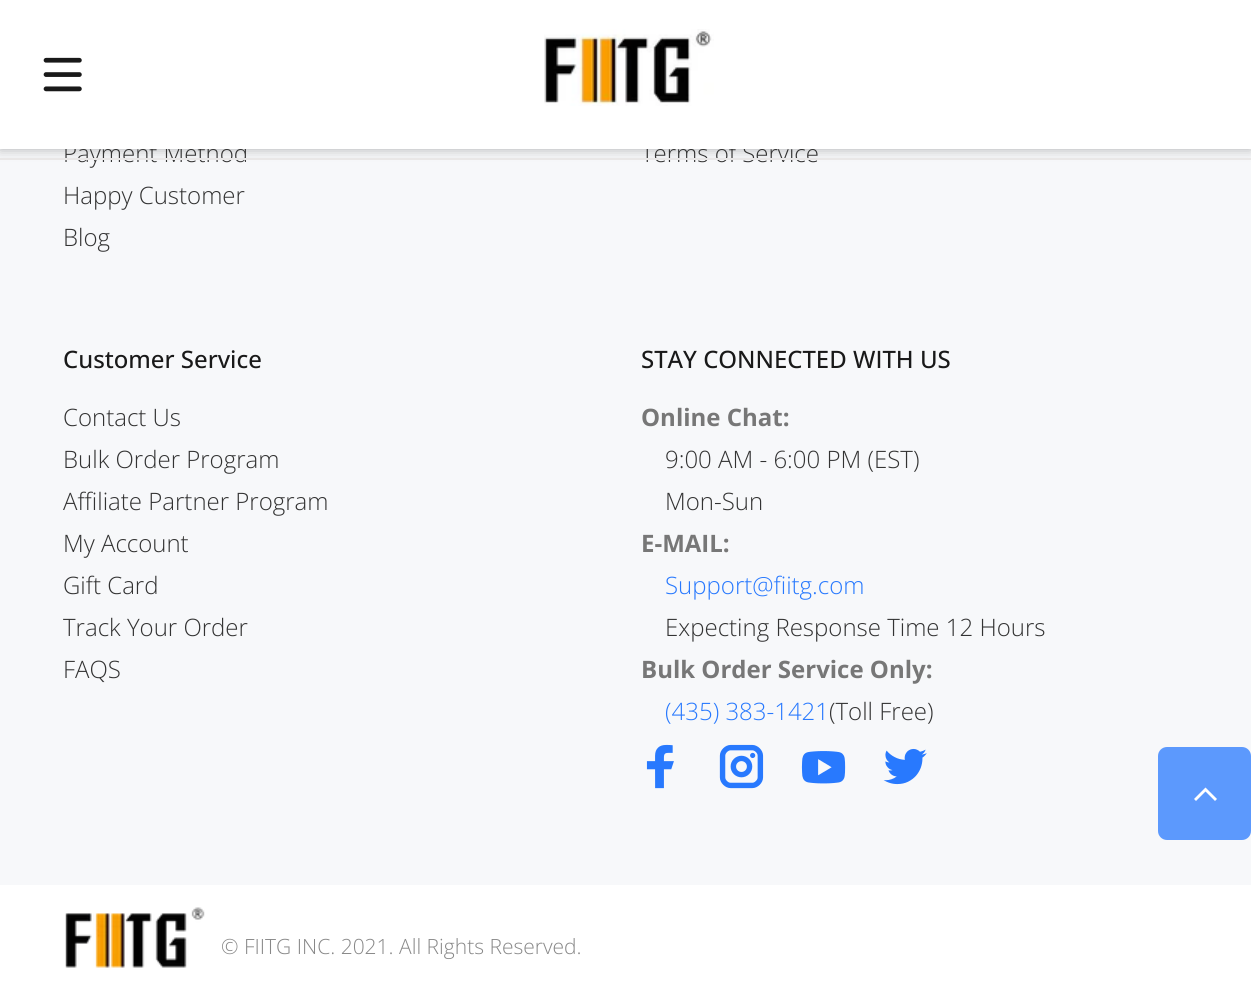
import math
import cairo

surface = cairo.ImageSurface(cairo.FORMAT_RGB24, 1251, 989)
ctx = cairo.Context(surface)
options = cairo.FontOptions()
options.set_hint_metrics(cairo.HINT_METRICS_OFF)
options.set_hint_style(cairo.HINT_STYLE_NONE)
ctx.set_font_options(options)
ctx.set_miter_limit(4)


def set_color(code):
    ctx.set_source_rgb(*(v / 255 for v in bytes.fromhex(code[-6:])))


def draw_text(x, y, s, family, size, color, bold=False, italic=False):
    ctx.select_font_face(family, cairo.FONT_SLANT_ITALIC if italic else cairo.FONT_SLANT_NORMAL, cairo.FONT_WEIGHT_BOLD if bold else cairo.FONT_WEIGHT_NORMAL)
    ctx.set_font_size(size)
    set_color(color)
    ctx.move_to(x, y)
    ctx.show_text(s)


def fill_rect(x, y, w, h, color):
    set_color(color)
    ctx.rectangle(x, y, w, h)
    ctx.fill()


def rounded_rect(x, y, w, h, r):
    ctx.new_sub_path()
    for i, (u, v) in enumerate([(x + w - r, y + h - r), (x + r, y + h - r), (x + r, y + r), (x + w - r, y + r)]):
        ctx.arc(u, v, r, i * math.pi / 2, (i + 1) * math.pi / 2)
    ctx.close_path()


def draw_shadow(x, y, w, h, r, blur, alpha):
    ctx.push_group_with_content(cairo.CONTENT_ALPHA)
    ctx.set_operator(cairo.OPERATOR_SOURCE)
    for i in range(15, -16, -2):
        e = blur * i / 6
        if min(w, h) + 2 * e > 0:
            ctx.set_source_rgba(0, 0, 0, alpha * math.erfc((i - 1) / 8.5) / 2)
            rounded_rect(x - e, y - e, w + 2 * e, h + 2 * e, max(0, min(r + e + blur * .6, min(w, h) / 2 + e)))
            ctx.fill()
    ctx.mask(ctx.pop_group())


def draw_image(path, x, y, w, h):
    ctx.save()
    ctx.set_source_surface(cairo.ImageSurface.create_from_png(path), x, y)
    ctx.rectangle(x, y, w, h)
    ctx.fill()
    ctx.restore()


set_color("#f7f8fa")
ctx.paint()
set_color("#000000")
draw_shadow(0, 0, 1251, 149, 0, 6, 0.3)
draw_text(63, 162, "Payment Method", "Open Sans Light", 24, "#333333")
draw_text(641, 162, "Terms of Service", "Open Sans Light", 24, "#333333")
fill_rect(0, 0, 1251, 149, "#ffffff")
draw_image("assets/img1.png", 43, 57, 39, 35)
draw_image("assets/img2.png", 544, 29, 170, 77)
fill_rect(0, 158, 1251, 2, "#e9e7e7")
draw_text(63, 204, "Happy Customer", "Open Sans Light", 24, "#333333")
draw_text(63, 246, "Blog", "Open Sans Light", 24, "#333333")
draw_text(63, 368, "Customer Service", "Open Sans Medium", 24, "#191919")
draw_text(63, 426, "Contact Us", "Open Sans Light", 24, "#333333")
draw_text(63, 468, "Bulk Order Program", "Open Sans Light", 24, "#333333")
draw_text(63, 510, "Affiliate Partner Program", "Open Sans Light", 24, "#333333")
draw_text(63, 552, "My Account", "Open Sans Light", 24, "#333333")
draw_text(63, 594, "Gift Card", "Open Sans Light", 24, "#333333")
draw_text(63, 636, "Track Your Order", "Open Sans Light", 24, "#333333")
draw_text(63, 678, "FAQS", "Open Sans Light", 24, "#333333")
draw_text(641, 368, "STAY CONNECTED WITH US", "Open Sans Medium", 24, "#191919")
draw_text(641, 426, "Online Chat:", "Open Sans", 24, "#777777", bold=True)
draw_text(665, 468, "9:00 AM - 6:00 PM (EST)", "Open Sans Light", 24, "#333333")
draw_text(665, 510, "Mon-Sun", "Open Sans Light", 24, "#333333")
draw_text(641, 552, "E-MAIL:", "Open Sans", 24, "#777777", bold=True)
draw_text(665, 594, "Support@fiitg.com", "Open Sans Light", 24, "#2879fe")
draw_text(665, 636, "Expecting Response Time 12 Hours", "Open Sans Light", 24, "#333333")
draw_text(641, 678, "Bulk Order Service Only:", "Open Sans", 24, "#777777", bold=True)
draw_text(665, 720, "(435) 383-1421", "Open Sans Light", 24, "#2879fe")
draw_text(829, 720, "(Toll Free)", "Open Sans Light", 24, "#333333")
draw_image("assets/img3.png", 646, 744, 28, 45)
draw_image("assets/img4.png", 719, 744, 45, 45)
draw_image("assets/img5.png", 801, 751, 45, 33)
draw_image("assets/img6.png", 883, 748, 44, 37)
fill_rect(0, 885, 1251, 104, "#ffffff")
draw_image("assets/img7.png", 65, 907, 140, 61)
draw_text(221, 954, "© FIITG INC. 2021. All Rights Reserved.", "Open Sans Light", 21, "#888888")
set_color("#5c99fd")
rounded_rect(1158, 747, 93, 93, 9)
ctx.fill()
set_color("#ffffff")
ctx.new_path()
ctx.move_to(1215, 801)
ctx.line_to(1205.5, 791.5)
ctx.line_to(1196, 801)
ctx.line_to(1194, 799)
ctx.line_to(1205.5, 787.5)
ctx.line_to(1217, 799)
ctx.close_path()
ctx.fill()
surface.write_to_png("output.png")
